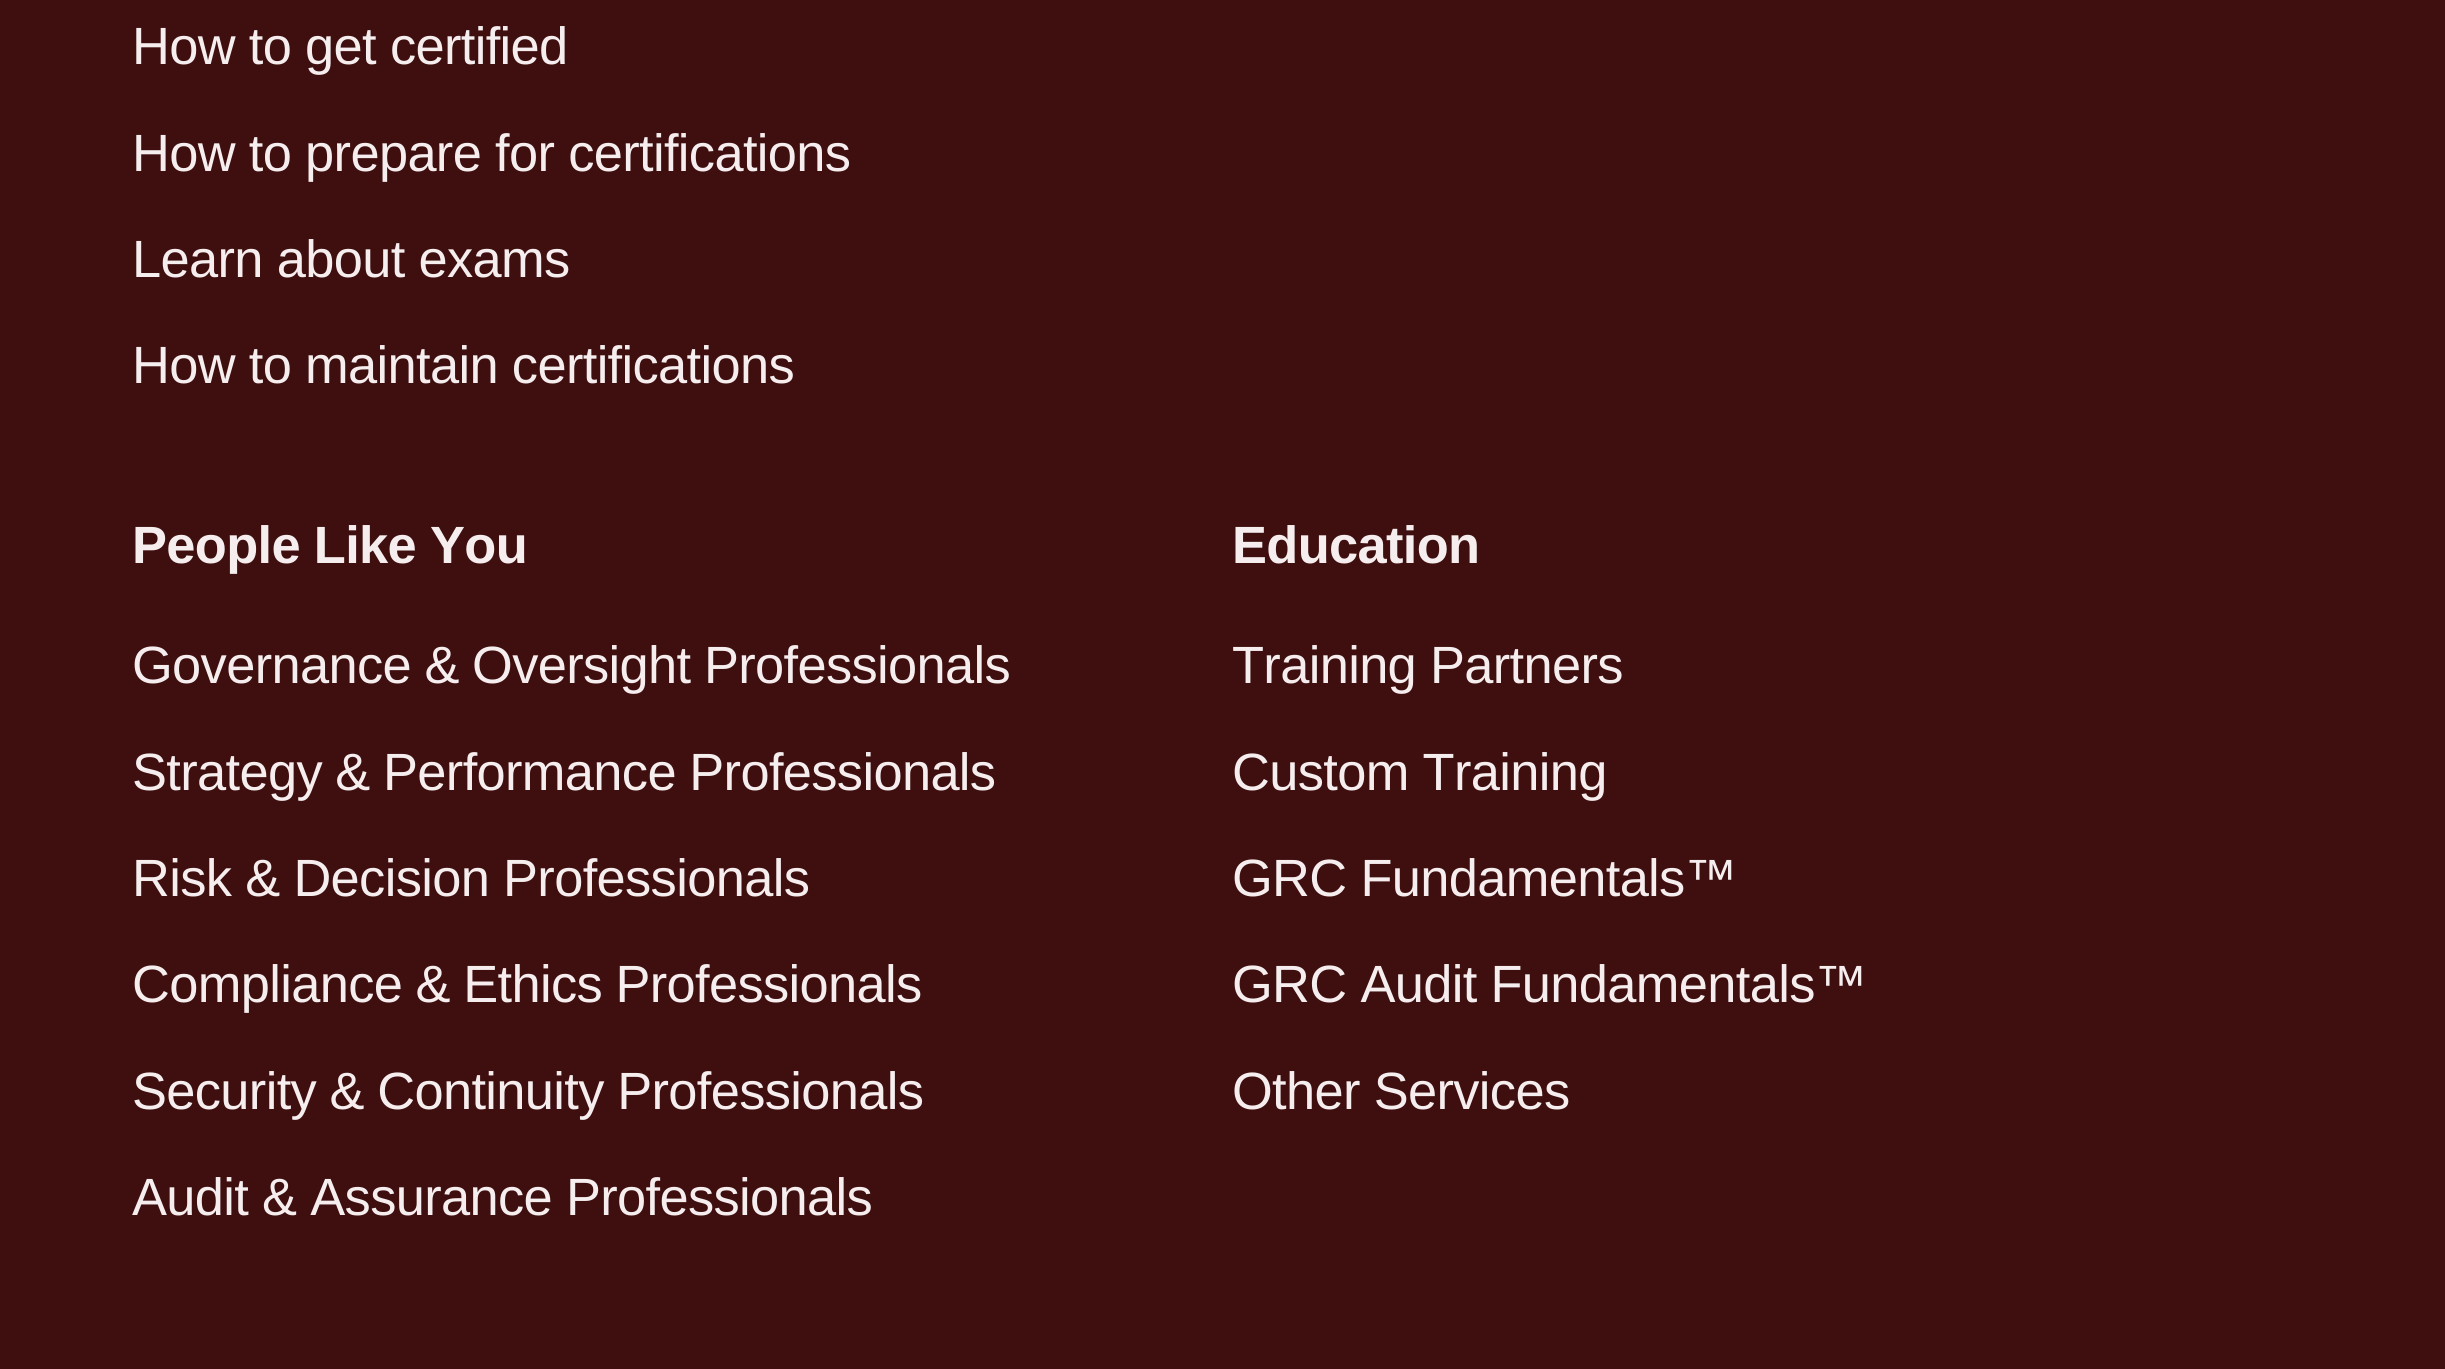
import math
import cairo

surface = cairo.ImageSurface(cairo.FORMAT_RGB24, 2445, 1369)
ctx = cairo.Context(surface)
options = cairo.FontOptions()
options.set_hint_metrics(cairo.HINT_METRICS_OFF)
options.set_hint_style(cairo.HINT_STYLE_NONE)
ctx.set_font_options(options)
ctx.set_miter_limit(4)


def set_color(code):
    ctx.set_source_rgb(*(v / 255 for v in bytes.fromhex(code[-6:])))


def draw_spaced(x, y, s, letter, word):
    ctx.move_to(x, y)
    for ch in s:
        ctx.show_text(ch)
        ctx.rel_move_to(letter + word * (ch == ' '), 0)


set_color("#3f0f0f")
ctx.paint()
ctx.select_font_face("Liberation Sans")
ctx.set_font_size(52.4)
set_color("#f5edee")
draw_spaced(132, 64, "How to get certified", -0.65, 0)
draw_spaced(132, 171, "How to prepare for certifications", -0.65, 0)
draw_spaced(132, 277, "Learn about exams", -0.65, 0)
draw_spaced(132, 383, "How to maintain certifications", -0.65, 0)
ctx.select_font_face("Liberation Sans", cairo.FONT_SLANT_NORMAL, cairo.FONT_WEIGHT_BOLD)
draw_spaced(132, 563, "People Like You", -0.65, 0)
ctx.select_font_face("Liberation Sans")
draw_spaced(132, 683, "Governance & Oversight Professionals", -0.65, -0.5)
draw_spaced(132, 790, "Strategy & Performance Professionals", -0.65, -0.5)
draw_spaced(132, 896, "Risk & Decision Professionals", -0.65, 0)
draw_spaced(132, 1002, "Compliance & Ethics Professionals", -0.65, -0.5)
draw_spaced(132, 1109, "Security & Continuity Professionals", -0.65, -0.5)
draw_spaced(132, 1215, "Audit & Assurance Professionals", -0.65, 0)
ctx.select_font_face("Liberation Sans", cairo.FONT_SLANT_NORMAL, cairo.FONT_WEIGHT_BOLD)
draw_spaced(1232, 563, "Education", -0.65, 0)
ctx.select_font_face("Liberation Sans")
draw_spaced(1232, 683, "Training Partners", -0.65, 0)
draw_spaced(1232, 790, "Custom Training", -0.65, 0)
draw_spaced(1232, 896, "GRC Fundamentals™", -0.65, 0)
draw_spaced(1232, 1002, "GRC Audit Fundamentals™", -0.65, 0)
draw_spaced(1232, 1109, "Other Services", -0.65, 0)
surface.write_to_png("output.png")
